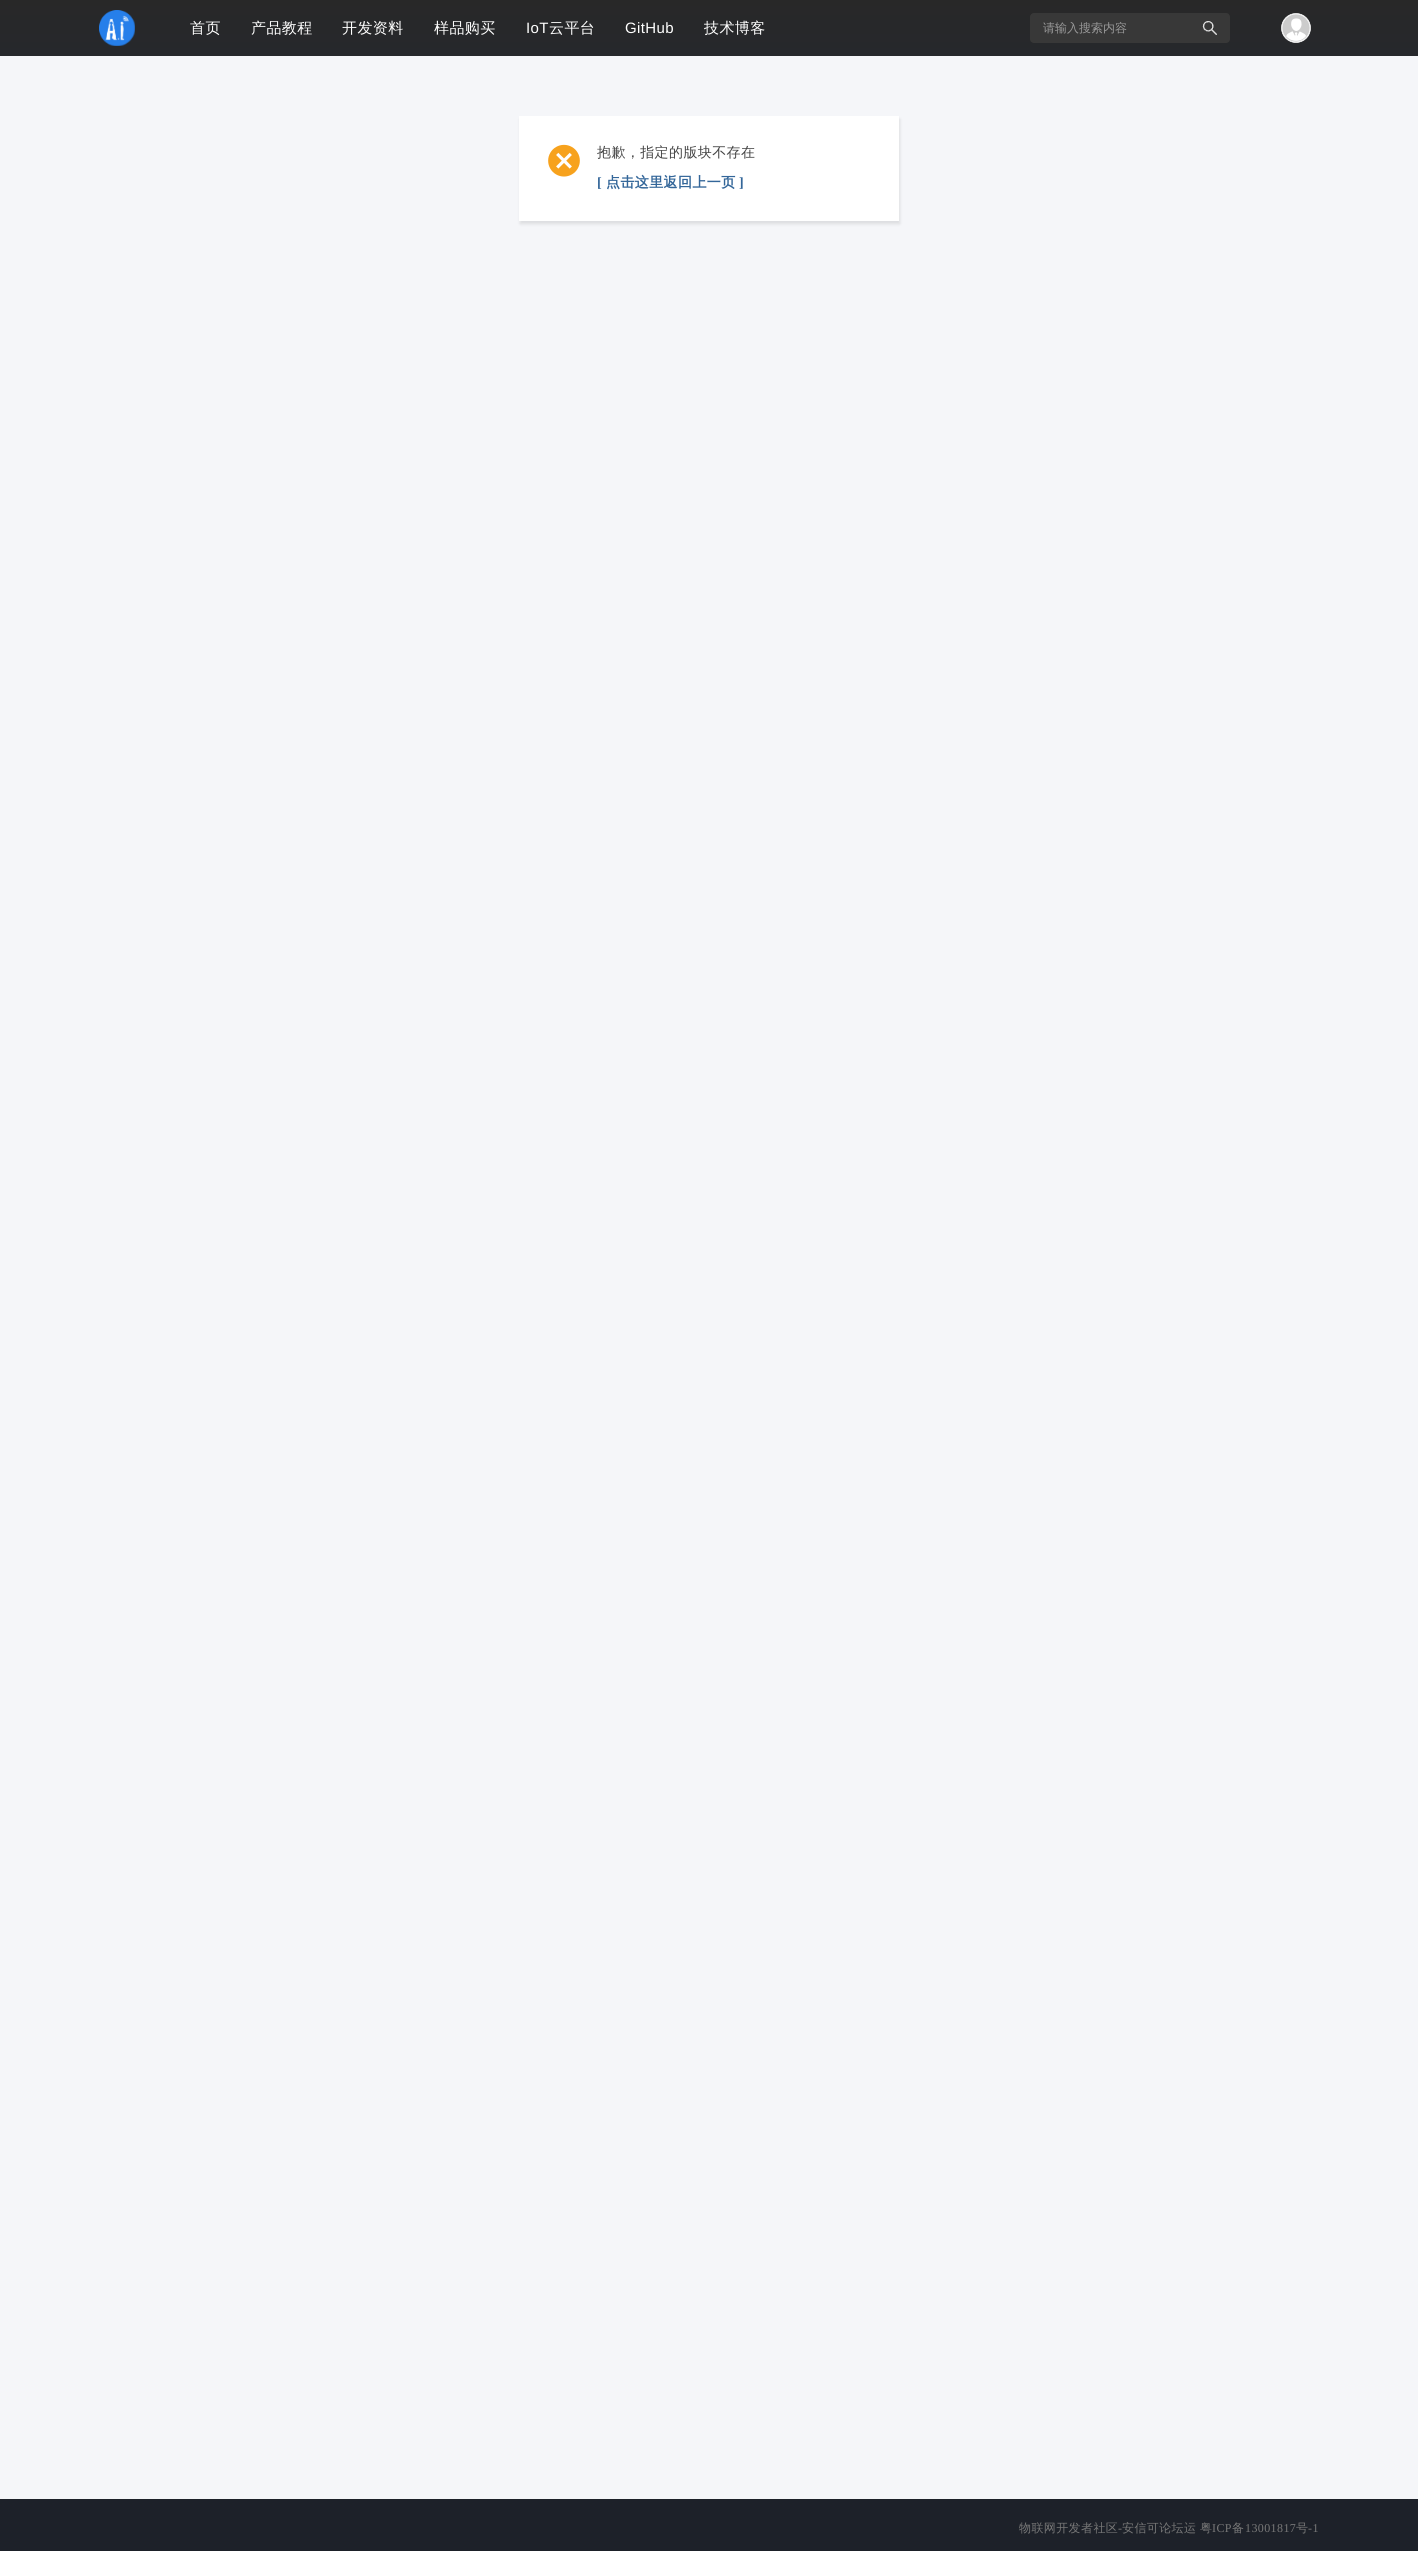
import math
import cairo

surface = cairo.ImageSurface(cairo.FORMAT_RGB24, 1418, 2551)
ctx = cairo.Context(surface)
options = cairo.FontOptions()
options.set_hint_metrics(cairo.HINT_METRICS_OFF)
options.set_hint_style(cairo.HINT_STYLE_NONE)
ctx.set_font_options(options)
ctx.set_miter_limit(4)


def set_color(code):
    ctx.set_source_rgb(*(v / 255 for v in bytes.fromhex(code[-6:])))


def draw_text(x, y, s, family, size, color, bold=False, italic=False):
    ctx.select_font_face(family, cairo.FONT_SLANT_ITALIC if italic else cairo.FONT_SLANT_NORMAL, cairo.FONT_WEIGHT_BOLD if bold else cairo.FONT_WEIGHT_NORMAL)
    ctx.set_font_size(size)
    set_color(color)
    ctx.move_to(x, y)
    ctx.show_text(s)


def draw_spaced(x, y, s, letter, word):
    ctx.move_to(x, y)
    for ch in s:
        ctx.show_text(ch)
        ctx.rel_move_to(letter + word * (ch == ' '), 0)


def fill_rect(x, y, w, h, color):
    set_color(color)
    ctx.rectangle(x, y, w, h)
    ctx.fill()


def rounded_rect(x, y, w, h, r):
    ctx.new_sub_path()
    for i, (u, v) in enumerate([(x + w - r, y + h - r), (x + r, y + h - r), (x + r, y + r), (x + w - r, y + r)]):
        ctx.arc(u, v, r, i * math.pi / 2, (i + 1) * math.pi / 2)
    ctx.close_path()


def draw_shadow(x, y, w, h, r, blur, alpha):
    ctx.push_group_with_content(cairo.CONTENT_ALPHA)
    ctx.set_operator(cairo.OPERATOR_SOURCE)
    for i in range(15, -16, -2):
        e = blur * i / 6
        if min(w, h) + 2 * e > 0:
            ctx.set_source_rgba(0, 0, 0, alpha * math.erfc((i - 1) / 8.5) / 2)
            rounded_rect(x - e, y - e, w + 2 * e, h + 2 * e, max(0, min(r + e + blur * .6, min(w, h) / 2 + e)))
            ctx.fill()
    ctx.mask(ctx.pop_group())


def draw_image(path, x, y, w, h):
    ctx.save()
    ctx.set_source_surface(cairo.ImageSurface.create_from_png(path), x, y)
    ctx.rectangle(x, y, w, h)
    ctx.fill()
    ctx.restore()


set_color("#f5f6f9")
ctx.paint()
gradient = cairo.LinearGradient(709, 0, 709, 56)
gradient.add_color_stop_rgba(0, 0.157, 0.157, 0.157, 1)
gradient.add_color_stop_rgba(1, 0.149, 0.157, 0.173, 1)
ctx.set_source(gradient)
ctx.rectangle(0, 0, 1418, 56)
ctx.fill()
draw_image("assets/img1.png", 99, 10, 36, 36)
ctx.select_font_face("WenQuanYi Zen Hei Medium")
ctx.set_font_size(15)
set_color("#ffffff")
draw_spaced(190, 33, "首页", 0.4, 0)
draw_spaced(251, 33, "产品教程", 0.4, 0)
draw_spaced(342, 33, "开发资料", 0.4, 0)
draw_spaced(434, 33, "样品购买", 0.4, 0)
ctx.select_font_face("Liberation Sans")
draw_spaced(526, 33, "IoT", 0.4, 0)
ctx.select_font_face("WenQuanYi Zen Hei Medium")
draw_spaced(549, 33, "云平台", 0.4, 0)
ctx.select_font_face("Liberation Sans")
draw_spaced(625, 33, "GitHub", 0.4, 0)
ctx.select_font_face("WenQuanYi Zen Hei Medium")
draw_spaced(704, 33, "技术博客", 0.4, 0)
set_color("#383838")
rounded_rect(1030, 13, 200, 30, 4)
ctx.fill()
draw_text(1043, 32, "请输入搜索内容", "WenQuanYi Zen Hei Medium", 12, "#999999")
draw_image("assets/img2.png", 1202, 21, 15, 14)
draw_image("assets/img3.png", 1281, 13, 30, 30)
set_color("#000000")
draw_shadow(520, 119, 380, 105, 0, 1.5, 0.1)
fill_rect(519, 116, 380, 105, "#ffffff")
draw_image("assets/img4.png", 548, 144, 32, 33)
ctx.set_font_size(14)
set_color("#444444")
draw_spaced(597, 157, "抱歉，指定的版块不存在", 0.4, 0)
ctx.select_font_face("Liberation Serif", cairo.FONT_SLANT_NORMAL, cairo.FONT_WEIGHT_BOLD)
set_color("#336699")
draw_spaced(597, 187, "[", 0.4, 0)
ctx.select_font_face("WenQuanYi Zen Hei", cairo.FONT_SLANT_NORMAL, cairo.FONT_WEIGHT_BOLD)
draw_spaced(606, 187, "点击这里返回上一页", 0.4, 0)
ctx.select_font_face("Liberation Serif", cairo.FONT_SLANT_NORMAL, cairo.FONT_WEIGHT_BOLD)
draw_spaced(739, 187, "]", 0.4, 0)
fill_rect(0, 2499, 1418, 52, "#1d2129")
ctx.select_font_face("WenQuanYi Zen Hei Medium")
ctx.set_font_size(12)
set_color("#777777")
draw_spaced(1019, 2532, "物联网开发者社区", 0.4, 0)
ctx.select_font_face("Liberation Serif")
draw_spaced(1118, 2532, "-", 0.4, 0)
ctx.select_font_face("WenQuanYi Zen Hei Medium")
draw_spaced(1122, 2532, "安信可论坛运", 0.4, 0)
draw_spaced(1200, 2532, "粤", 0.4, 0)
ctx.select_font_face("Liberation Serif")
draw_spaced(1212, 2532, "ICP", 0.4, 0)
ctx.select_font_face("WenQuanYi Zen Hei Medium")
draw_spaced(1232, 2532, "备", 0.4, 0)
ctx.select_font_face("Liberation Serif")
draw_spaced(1245, 2532, "13001817", 0.4, 0)
ctx.select_font_face("WenQuanYi Zen Hei Medium")
draw_spaced(1296, 2532, "号", 0.4, 0)
ctx.select_font_face("Liberation Serif")
draw_spaced(1308, 2532, "-1", 0.4, 0)
surface.write_to_png("output.png")
